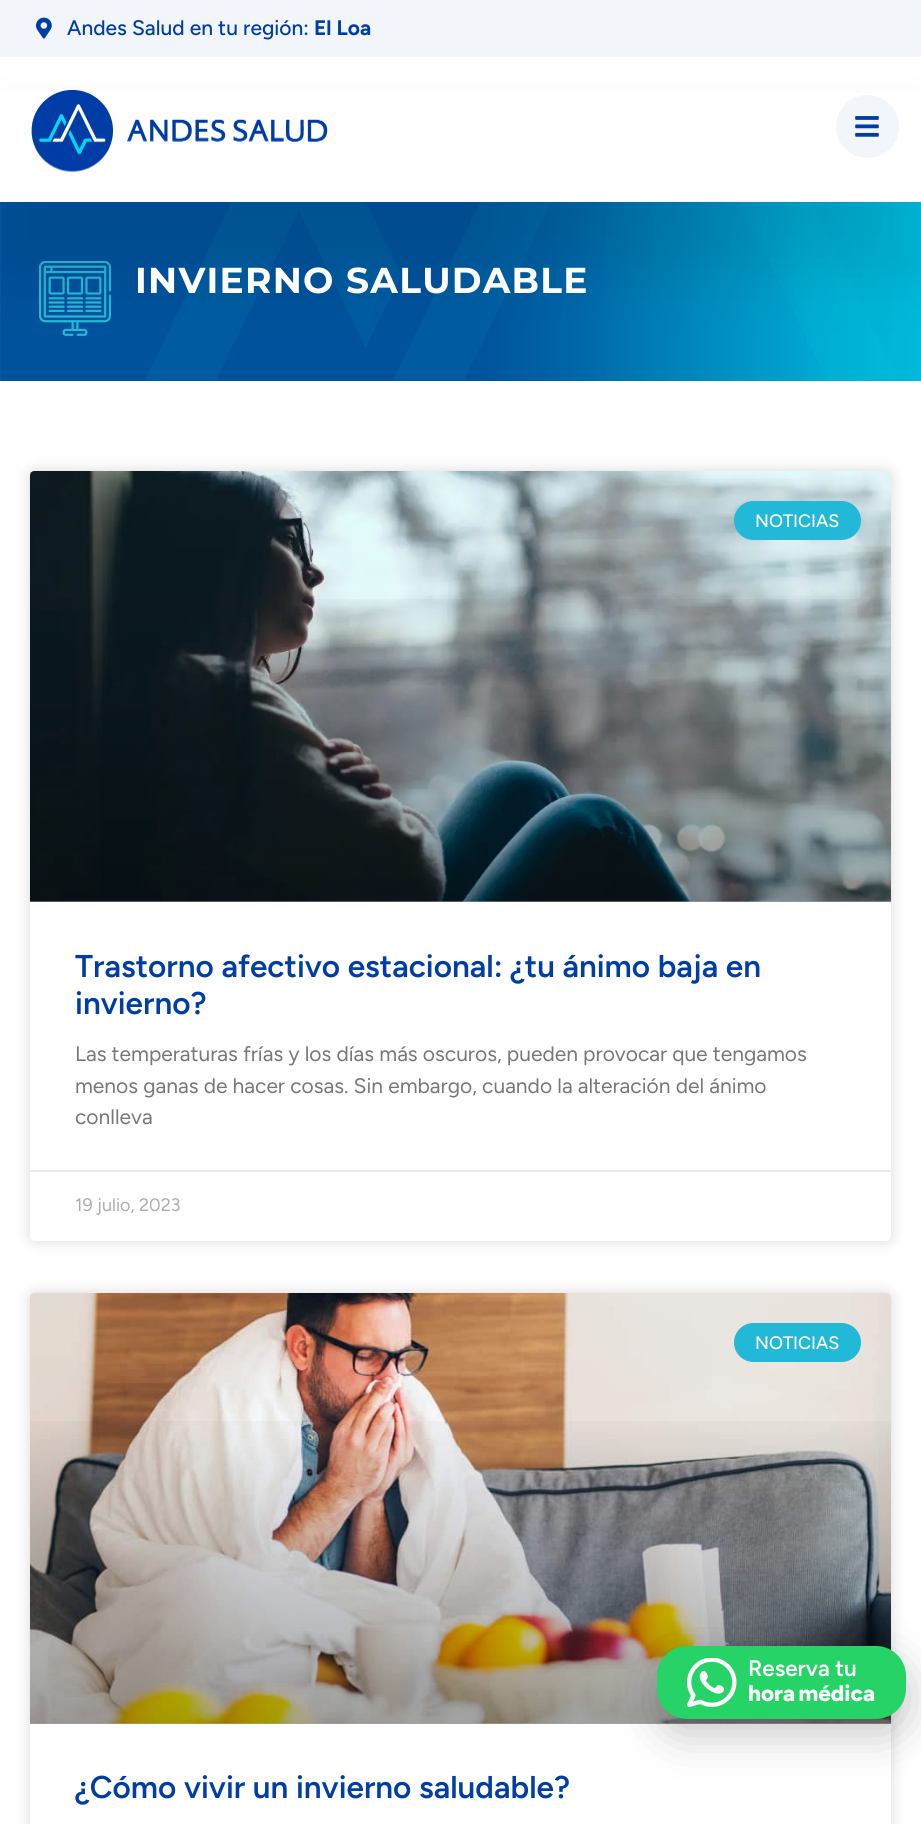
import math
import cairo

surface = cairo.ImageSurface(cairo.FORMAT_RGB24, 921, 1824)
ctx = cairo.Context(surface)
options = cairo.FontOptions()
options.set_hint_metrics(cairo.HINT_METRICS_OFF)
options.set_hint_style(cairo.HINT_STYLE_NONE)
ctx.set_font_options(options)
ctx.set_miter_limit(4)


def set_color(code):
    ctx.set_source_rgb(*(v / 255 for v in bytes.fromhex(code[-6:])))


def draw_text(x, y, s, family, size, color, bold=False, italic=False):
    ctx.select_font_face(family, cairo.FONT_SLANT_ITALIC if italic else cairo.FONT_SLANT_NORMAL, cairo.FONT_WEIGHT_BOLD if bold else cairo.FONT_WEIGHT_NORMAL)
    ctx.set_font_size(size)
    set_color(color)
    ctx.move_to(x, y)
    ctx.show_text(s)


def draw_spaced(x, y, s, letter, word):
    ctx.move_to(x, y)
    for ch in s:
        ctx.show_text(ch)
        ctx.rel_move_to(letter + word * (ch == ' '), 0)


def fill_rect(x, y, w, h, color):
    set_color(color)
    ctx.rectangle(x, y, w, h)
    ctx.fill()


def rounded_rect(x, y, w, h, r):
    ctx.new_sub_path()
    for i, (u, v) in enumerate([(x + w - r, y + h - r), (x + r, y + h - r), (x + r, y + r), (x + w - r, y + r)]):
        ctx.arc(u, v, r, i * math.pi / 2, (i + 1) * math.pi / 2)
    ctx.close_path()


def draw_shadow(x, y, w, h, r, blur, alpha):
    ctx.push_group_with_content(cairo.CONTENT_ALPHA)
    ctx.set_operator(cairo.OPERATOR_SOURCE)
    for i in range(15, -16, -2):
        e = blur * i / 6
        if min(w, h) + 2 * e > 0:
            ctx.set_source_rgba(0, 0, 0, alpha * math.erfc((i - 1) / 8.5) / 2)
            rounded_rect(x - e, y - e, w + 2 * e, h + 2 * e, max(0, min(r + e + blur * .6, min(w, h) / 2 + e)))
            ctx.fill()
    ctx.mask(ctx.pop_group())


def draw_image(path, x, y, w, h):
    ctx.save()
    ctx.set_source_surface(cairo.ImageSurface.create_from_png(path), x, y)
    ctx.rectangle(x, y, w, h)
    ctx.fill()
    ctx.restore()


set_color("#ffffff")
ctx.paint()
fill_rect(0, 0, 921, 57, "#f2f6fb")
draw_image("assets/img1.png", 36, 17, 16, 22)
draw_text(67, 35, "Andes Salud en tu región:", "Figtree Medium", 21, "#003da6")
draw_text(314, 35, "El Loa", "Figtree", 21, "#003da6", bold=True)
draw_image("assets/img4.png", 0, 202, 921, 179)
draw_image("assets/img5.png", 39, 261, 73, 75)
set_color("#000000")
draw_shadow(0, 131, 921, 142, 0, 31.5, 0.09)
fill_rect(0, 93, 921, 109, "#ffffff")
draw_image("assets/img2.png", 31, 90, 297, 82)
set_color("#f2f6fb")
ctx.arc(867.5, 126.5, 31.5, 0, 2 * math.pi)
ctx.fill()
draw_image("assets/img3.png", 855, 116, 24, 21)
ctx.select_font_face("Montserrat", cairo.FONT_SLANT_NORMAL, cairo.FONT_WEIGHT_BOLD)
ctx.set_font_size(36)
set_color("#ffffff")
draw_spaced(135, 293, "INVIERNO SALUDABLE", 1.25, 0)
set_color("#000000")
draw_shadow(30, 471, 861, 770, 5, 7.5, 0.15)
set_color("#ffffff")
rounded_rect(30, 471, 861, 770, 5)
ctx.fill()
draw_image("assets/img6.png", 30, 471, 861, 431)
gradient = cairo.LinearGradient(461, 902, 461, 471)
gradient.add_color_stop_rgba(0, 0, 0, 0, 0.35)
gradient.add_color_stop_rgba(0.75, 0, 0, 0, 0)
ctx.set_source(gradient)
ctx.rectangle(30, 599, 861, 303)
ctx.fill()
set_color("#22b9d8")
rounded_rect(734, 501, 127, 39, 19.5)
ctx.fill()
draw_text(755, 527, "NOTICIAS", "Figtree Medium", 18, "#ffffff")
draw_text(75, 977, "Trastorno afectivo estacional: ¿tu ánimo baja en", "Figtree SemiBold", 31.5, "#003da6")
draw_text(75, 1014, "invierno?", "Figtree SemiBold", 31.5, "#003da6")
draw_text(75, 1061, "Las temperaturas frías y los días más oscuros, pueden provocar que tengamos", "Figtree", 21, "#777777")
draw_text(75, 1093, "menos ganas de hacer cosas. Sin embargo, cuando la alteración del ánimo", "Figtree", 21, "#777777")
draw_text(75, 1124, "conlleva", "Figtree", 21, "#777777")
fill_rect(30, 1170, 861, 2, "#eaeaea")
draw_text(75, 1211, "19 julio, 2023", "Figtree", 18, "#adadad")
set_color("#000000")
draw_shadow(30, 1293, 861, 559, 5, 7.5, 0.15)
set_color("#ffffff")
rounded_rect(30, 1293, 861, 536, 5)
ctx.fill()
draw_image("assets/img7.png", 30, 1293, 861, 431)
gradient = cairo.LinearGradient(461, 1724, 461, 1293)
gradient.add_color_stop_rgba(0, 0, 0, 0, 0.35)
gradient.add_color_stop_rgba(0.75, 0, 0, 0, 0)
ctx.set_source(gradient)
ctx.rectangle(30, 1421, 861, 303)
ctx.fill()
set_color("#22b9d8")
rounded_rect(734, 1323, 127, 39, 19.5)
ctx.fill()
draw_text(755, 1349, "NOTICIAS", "Figtree Medium", 18, "#ffffff")
draw_text(75, 1798, "¿Cómo vivir un invierno saludable?", "Figtree SemiBold", 31.5, "#003da6")
set_color("#000000")
draw_shadow(659, 1661, 249, 73, 30, 22.5, 0.22)
set_color("#25d366")
rounded_rect(657, 1646, 249, 73, 30)
ctx.fill()
draw_image("assets/img8.png", 687, 1658, 50, 49)
draw_text(748, 1676, "Reserva tu", "Figtree SemiBold", 22.5, "#ffffff")
ctx.select_font_face("Figtree ExtraBold")
draw_spaced(748, 1701, "hora médica", 0, -2)
surface.write_to_png("output.png")
